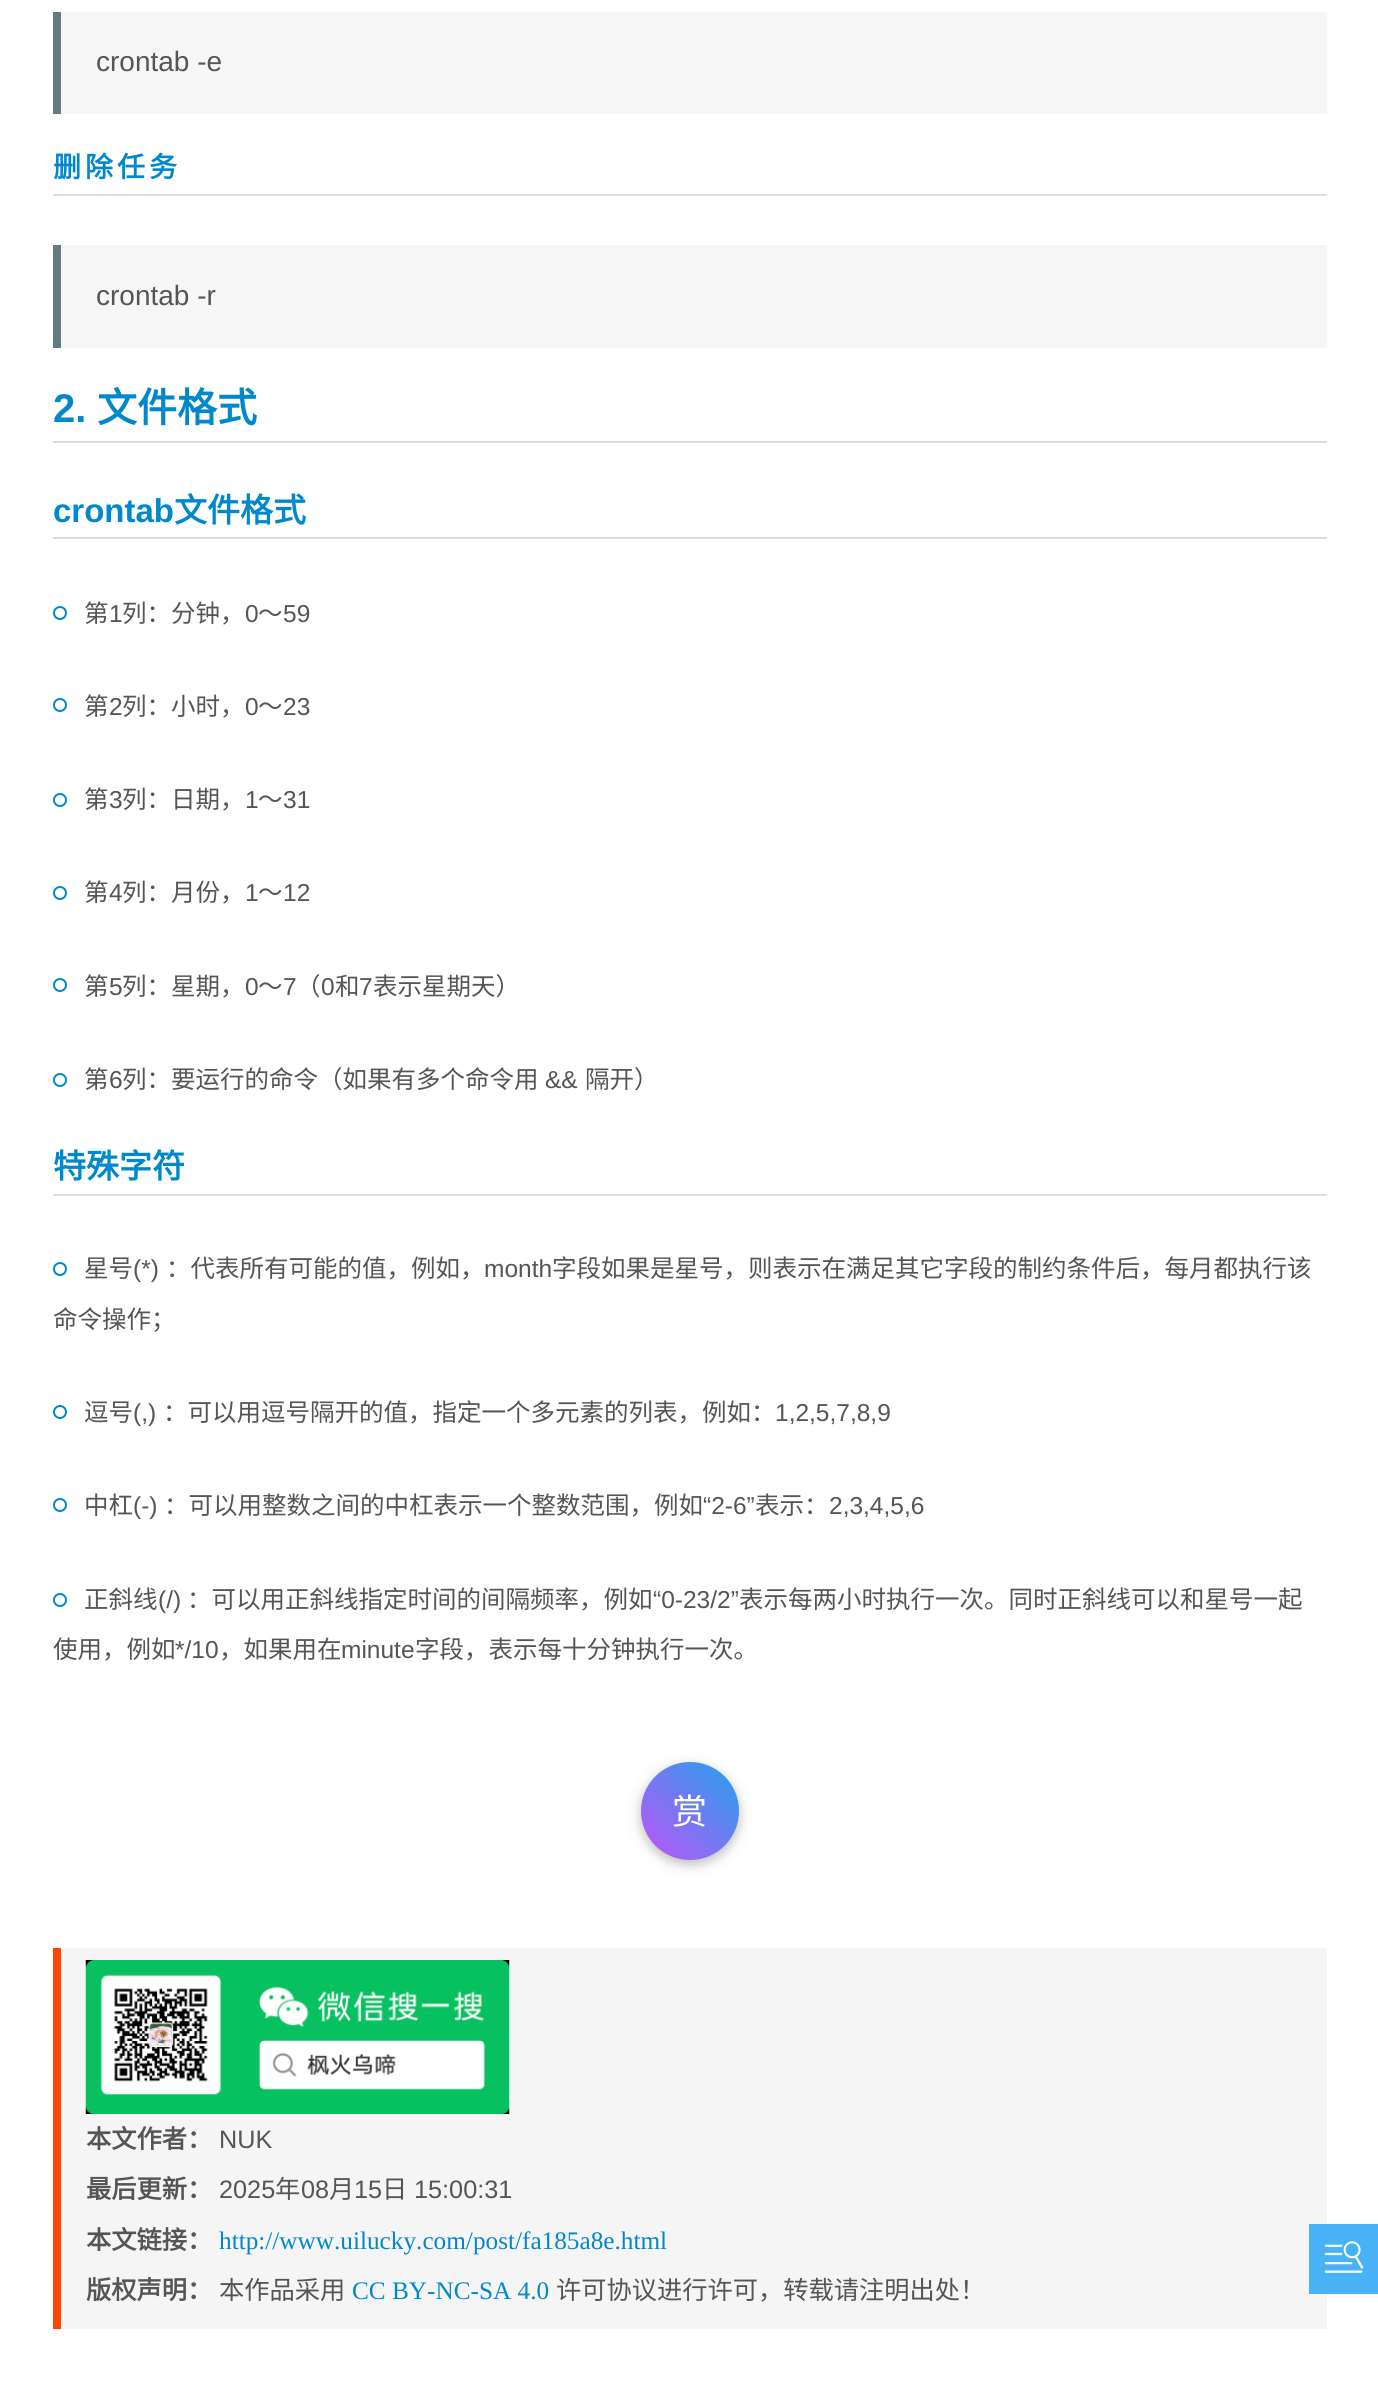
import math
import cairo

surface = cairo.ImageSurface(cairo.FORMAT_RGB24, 1378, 2381)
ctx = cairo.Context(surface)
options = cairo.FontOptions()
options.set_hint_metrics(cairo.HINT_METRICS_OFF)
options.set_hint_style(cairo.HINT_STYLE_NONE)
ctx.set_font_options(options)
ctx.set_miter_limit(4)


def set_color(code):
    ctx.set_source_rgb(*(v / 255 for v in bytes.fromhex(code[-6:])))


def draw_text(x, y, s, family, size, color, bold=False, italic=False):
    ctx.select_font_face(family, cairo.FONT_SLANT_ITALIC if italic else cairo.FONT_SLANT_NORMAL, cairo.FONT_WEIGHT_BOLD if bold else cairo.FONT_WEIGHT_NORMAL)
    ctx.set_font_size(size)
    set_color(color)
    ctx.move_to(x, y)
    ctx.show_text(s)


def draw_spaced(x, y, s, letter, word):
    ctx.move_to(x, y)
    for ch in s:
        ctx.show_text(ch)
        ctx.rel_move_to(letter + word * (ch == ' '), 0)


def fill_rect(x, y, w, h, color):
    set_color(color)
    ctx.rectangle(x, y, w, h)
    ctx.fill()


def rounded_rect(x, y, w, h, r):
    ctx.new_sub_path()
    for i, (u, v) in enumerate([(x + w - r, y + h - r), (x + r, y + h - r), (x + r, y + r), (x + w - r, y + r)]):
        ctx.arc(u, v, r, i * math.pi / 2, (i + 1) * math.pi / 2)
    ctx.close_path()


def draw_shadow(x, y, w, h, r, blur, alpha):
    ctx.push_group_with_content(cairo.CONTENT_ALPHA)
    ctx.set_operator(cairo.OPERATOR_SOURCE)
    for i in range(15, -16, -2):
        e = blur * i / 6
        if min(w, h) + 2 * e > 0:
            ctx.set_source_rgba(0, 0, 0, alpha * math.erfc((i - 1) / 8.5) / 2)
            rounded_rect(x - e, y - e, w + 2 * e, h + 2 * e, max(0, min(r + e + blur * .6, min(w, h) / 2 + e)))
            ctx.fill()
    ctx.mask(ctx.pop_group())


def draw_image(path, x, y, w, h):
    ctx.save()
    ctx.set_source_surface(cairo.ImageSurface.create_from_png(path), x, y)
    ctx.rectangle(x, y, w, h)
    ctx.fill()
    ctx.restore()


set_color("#ffffff")
ctx.paint()
fill_rect(61, 12, 1266, 102, "#f6f6f6")
fill_rect(53, 12, 8, 102, "#657b83")
draw_text(96, 71, "crontab -e", "Liberation Sans", 28, "#555555")
fill_rect(53, 194, 1274, 2, "#dddddd")
ctx.select_font_face("Noto Sans CJK SC", cairo.FONT_SLANT_NORMAL, cairo.FONT_WEIGHT_BOLD)
set_color("#0088cc")
draw_spaced(53, 177, "删除任务", 4, 0)
fill_rect(61, 245, 1266, 103, "#f6f6f6")
fill_rect(53, 245, 8, 103, "#657b83")
draw_text(96, 305, "crontab -r", "Liberation Sans", 28, "#555555")
fill_rect(53, 441, 1274, 2, "#dddddd")
draw_text(53, 422, "2.", "Liberation Sans", 40, "#0088cc", bold=True)
draw_text(97, 422, "文件格式", "Noto Sans CJK SC", 40, "#0088cc", bold=True)
fill_rect(53, 537, 1274, 2, "#dddddd")
draw_text(53, 522, "crontab", "Liberation Sans", 33, "#0088cc", bold=True)
draw_text(174, 522, "文件格式", "Noto Sans CJK SC", 33, "#0088cc", bold=True)
ctx.new_path()
ctx.arc(60, 613, 6, 0, 2 * math.pi)
ctx.stroke()
draw_text(84, 622, "第", "Noto Sans CJK SC", 24.5, "#555555")
draw_text(109, 622, "1", "Liberation Sans", 24.5, "#555555")
draw_text(122, 622, "列：分钟，", "Noto Sans CJK SC", 24.5, "#555555")
draw_text(245, 622, "0", "Liberation Sans", 24.5, "#555555")
draw_text(258, 622, "～", "Noto Sans CJK SC", 24.5, "#555555")
draw_text(283, 622, "59", "Liberation Sans", 24.5, "#555555")
ctx.new_path()
ctx.arc(60, 705, 6, 0, 2 * math.pi)
set_color("#0088cc")
ctx.stroke()
draw_text(84, 715, "第", "Noto Sans CJK SC", 24.5, "#555555")
draw_text(109, 715, "2", "Liberation Sans", 24.5, "#555555")
draw_text(122, 715, "列：小时，", "Noto Sans CJK SC", 24.5, "#555555")
draw_text(245, 715, "0", "Liberation Sans", 24.5, "#555555")
draw_text(258, 715, "～", "Noto Sans CJK SC", 24.5, "#555555")
draw_text(283, 715, "23", "Liberation Sans", 24.5, "#555555")
ctx.new_path()
ctx.arc(60, 800, 6, 0, 2 * math.pi)
set_color("#0088cc")
ctx.stroke()
draw_text(84, 808, "第", "Noto Sans CJK SC", 24.5, "#555555")
draw_text(109, 808, "3", "Liberation Sans", 24.5, "#555555")
draw_text(122, 808, "列：日期，", "Noto Sans CJK SC", 24.5, "#555555")
draw_text(245, 808, "1", "Liberation Sans", 24.5, "#555555")
draw_text(258, 808, "～", "Noto Sans CJK SC", 24.5, "#555555")
draw_text(283, 808, "31", "Liberation Sans", 24.5, "#555555")
ctx.new_path()
ctx.arc(60, 893, 6, 0, 2 * math.pi)
set_color("#0088cc")
ctx.stroke()
draw_text(84, 901, "第", "Noto Sans CJK SC", 24.5, "#555555")
draw_text(109, 901, "4", "Liberation Sans", 24.5, "#555555")
draw_text(122, 901, "列：月份，", "Noto Sans CJK SC", 24.5, "#555555")
draw_text(245, 901, "1", "Liberation Sans", 24.5, "#555555")
draw_text(258, 901, "～", "Noto Sans CJK SC", 24.5, "#555555")
draw_text(283, 901, "12", "Liberation Sans", 24.5, "#555555")
ctx.new_path()
ctx.arc(60, 985, 6, 0, 2 * math.pi)
set_color("#0088cc")
ctx.stroke()
draw_text(84, 995, "第", "Noto Sans CJK SC", 24.5, "#555555")
draw_text(109, 995, "5", "Liberation Sans", 24.5, "#555555")
draw_text(122, 995, "列：星期，", "Noto Sans CJK SC", 24.5, "#555555")
draw_text(245, 995, "0", "Liberation Sans", 24.5, "#555555")
draw_text(258, 995, "～", "Noto Sans CJK SC", 24.5, "#555555")
draw_text(283, 995, "7", "Liberation Sans", 24.5, "#555555")
draw_text(296, 995, "（", "Noto Sans CJK SC", 24.5, "#555555")
draw_text(321, 995, "0", "Liberation Sans", 24.5, "#555555")
draw_text(335, 995, "和", "Noto Sans CJK SC", 24.5, "#555555")
draw_text(359, 995, "7", "Liberation Sans", 24.5, "#555555")
draw_text(373, 995, "表示星期天）", "Noto Sans CJK SC", 24.5, "#555555")
ctx.new_path()
ctx.arc(60, 1080, 6, 0, 2 * math.pi)
set_color("#0088cc")
ctx.stroke()
draw_text(84, 1088, "第", "Noto Sans CJK SC", 24.5, "#555555")
draw_text(109, 1088, "6", "Liberation Sans", 24.5, "#555555")
draw_text(122, 1088, "列：要运行的命令（如果有多个命令用", "Noto Sans CJK SC", 24.5, "#555555")
draw_text(545, 1088, "&&", "Liberation Sans", 24.5, "#555555")
draw_text(585, 1088, "隔开）", "Noto Sans CJK SC", 24.5, "#555555")
fill_rect(53, 1194, 1274, 2, "#dddddd")
draw_text(53, 1178, "特殊字符", "Noto Sans CJK SC", 33, "#0088cc", bold=True)
draw_text(84, 1277, "星号", "Noto Sans CJK SC", 24.5, "#555555")
draw_text(133, 1277, "(*)", "Liberation Sans", 24.5, "#555555")
draw_text(166, 1277, "：代表所有可能的值，例如，", "Noto Sans CJK SC", 24.5, "#555555")
draw_text(484, 1277, "month", "Liberation Sans", 24.5, "#555555")
draw_text(552, 1277, "字段如果是星号，则表示在满足其它字段的制约条件后，每月都执行该", "Noto Sans CJK SC", 24.5, "#555555")
draw_text(53, 1328, "命令操作；", "Noto Sans CJK SC", 24.5, "#555555")
ctx.new_path()
ctx.arc(60, 1269, 6, 0, 2 * math.pi)
set_color("#0088cc")
ctx.stroke()
ctx.arc(60, 1412, 6, 0, 2 * math.pi)
ctx.stroke()
draw_text(84, 1421, "逗号", "Noto Sans CJK SC", 24.5, "#555555")
draw_text(133, 1421, "(,)", "Liberation Sans", 24.5, "#555555")
draw_text(163, 1421, "：可以用逗号隔开的值，指定一个多元素的列表，例如：", "Noto Sans CJK SC", 24.5, "#555555")
draw_text(775, 1421, "1,2,5,7,8,9", "Liberation Sans", 24.5, "#555555")
ctx.new_path()
ctx.arc(60, 1505, 6, 0, 2 * math.pi)
set_color("#0088cc")
ctx.stroke()
draw_text(84, 1514, "中杠", "Noto Sans CJK SC", 24.5, "#555555")
draw_text(133, 1514, "(-)", "Liberation Sans", 24.5, "#555555")
draw_text(164, 1514, "：可以用整数之间的中杠表示一个整数范围，例如", "Noto Sans CJK SC", 24.5, "#555555")
draw_text(703, 1514, "“2-6”", "Liberation Sans", 24.5, "#555555")
draw_text(755, 1514, "表示：", "Noto Sans CJK SC", 24.5, "#555555")
draw_text(829, 1514, "2,3,4,5,6", "Liberation Sans", 24.5, "#555555")
draw_text(84, 1608, "正斜线", "Noto Sans CJK SC", 24.5, "#555555")
draw_text(158, 1608, "(/)", "Liberation Sans", 24.5, "#555555")
draw_text(187, 1608, "：可以用正斜线指定时间的间隔频率，例如", "Noto Sans CJK SC", 24.5, "#555555")
draw_text(653, 1608, "“0-23/2”", "Liberation Sans", 24.5, "#555555")
draw_text(739, 1608, "表示每两小时执行一次。同时正斜线可以和星号一起", "Noto Sans CJK SC", 24.5, "#555555")
draw_text(53, 1658, "使用，例如", "Noto Sans CJK SC", 24.5, "#555555")
draw_text(175, 1658, "*/10", "Liberation Sans", 24.5, "#555555")
draw_text(219, 1658, "，如果用在", "Noto Sans CJK SC", 24.5, "#555555")
draw_text(341, 1658, "minute", "Liberation Sans", 24.5, "#555555")
draw_text(415, 1658, "字段，表示每十分钟执行一次。", "Noto Sans CJK SC", 24.5, "#555555")
ctx.new_path()
ctx.arc(60, 1600, 6, 0, 2 * math.pi)
set_color("#0088cc")
ctx.stroke()
set_color("#000000")
draw_shadow(641, 1766, 98, 98, 49, 9, 0.12)
draw_shadow(641, 1766, 98, 98, 49, 4.5, 0.16)
gradient = cairo.LinearGradient(641, 1860, 739, 1762)
gradient.add_color_stop_rgba(0, 0.753, 0.325, 0.969, 1)
gradient.add_color_stop_rgba(1, 0.137, 0.635, 0.929, 1)
ctx.set_source(gradient)
ctx.arc(690, 1811, 49, 0, 2 * math.pi)
ctx.fill()
draw_text(672, 1824, "赏", "Noto Sans CJK SC", 35, "#ffffff")
fill_rect(61, 1948, 1266, 381, "#f5f5f5")
fill_rect(53, 1948, 8, 381, "#ff4500")
draw_image("assets/img1.png", 85, 1960, 425, 154)
draw_text(86, 2148, "本文作者：", "Noto Sans CJK SC", 25.25, "#555555", bold=True)
draw_text(219, 2148, "NUK", "Liberation Sans", 25.25, "#555555")
draw_text(86, 2198, "最后更新：", "Noto Sans CJK SC", 25.25, "#555555", bold=True)
draw_text(219, 2198, "2025", "Liberation Sans", 25.25, "#555555")
draw_text(275, 2198, "年", "Noto Sans CJK SC", 25.25, "#555555")
draw_text(301, 2198, "08", "Liberation Sans", 25.25, "#555555")
draw_text(329, 2198, "月", "Noto Sans CJK SC", 25.25, "#555555")
draw_text(354, 2198, "15", "Liberation Sans", 25.25, "#555555")
draw_text(382, 2198, "日", "Noto Sans CJK SC", 25.25, "#555555")
draw_text(414, 2198, "15:00:31", "Liberation Sans", 25.25, "#555555")
draw_text(86, 2249, "本文链接：", "Noto Sans CJK SC", 25.25, "#555555", bold=True)
draw_text(219, 2249, "http://www.uilucky.com/post/fa185a8e.html", "Liberation Serif", 25.25, "#0088cc")
draw_text(86, 2299, "版权声明：", "Noto Sans CJK SC", 25.25, "#555555", bold=True)
draw_text(219, 2299, "本作品采用", "Noto Sans CJK SC", 25.25, "#555555")
draw_text(352, 2299, "CC BY-NC-SA 4.0", "Liberation Serif", 25.25, "#0088cc")
draw_text(556, 2299, "许可协议进行许可，转载请注明出处！", "Noto Sans CJK SC", 25.25, "#555555")
fill_rect(1309, 2224, 69, 70, "#49b1f5")
draw_image("assets/img2.png", 1324, 2241, 40, 32)
surface.write_to_png("output.png")
